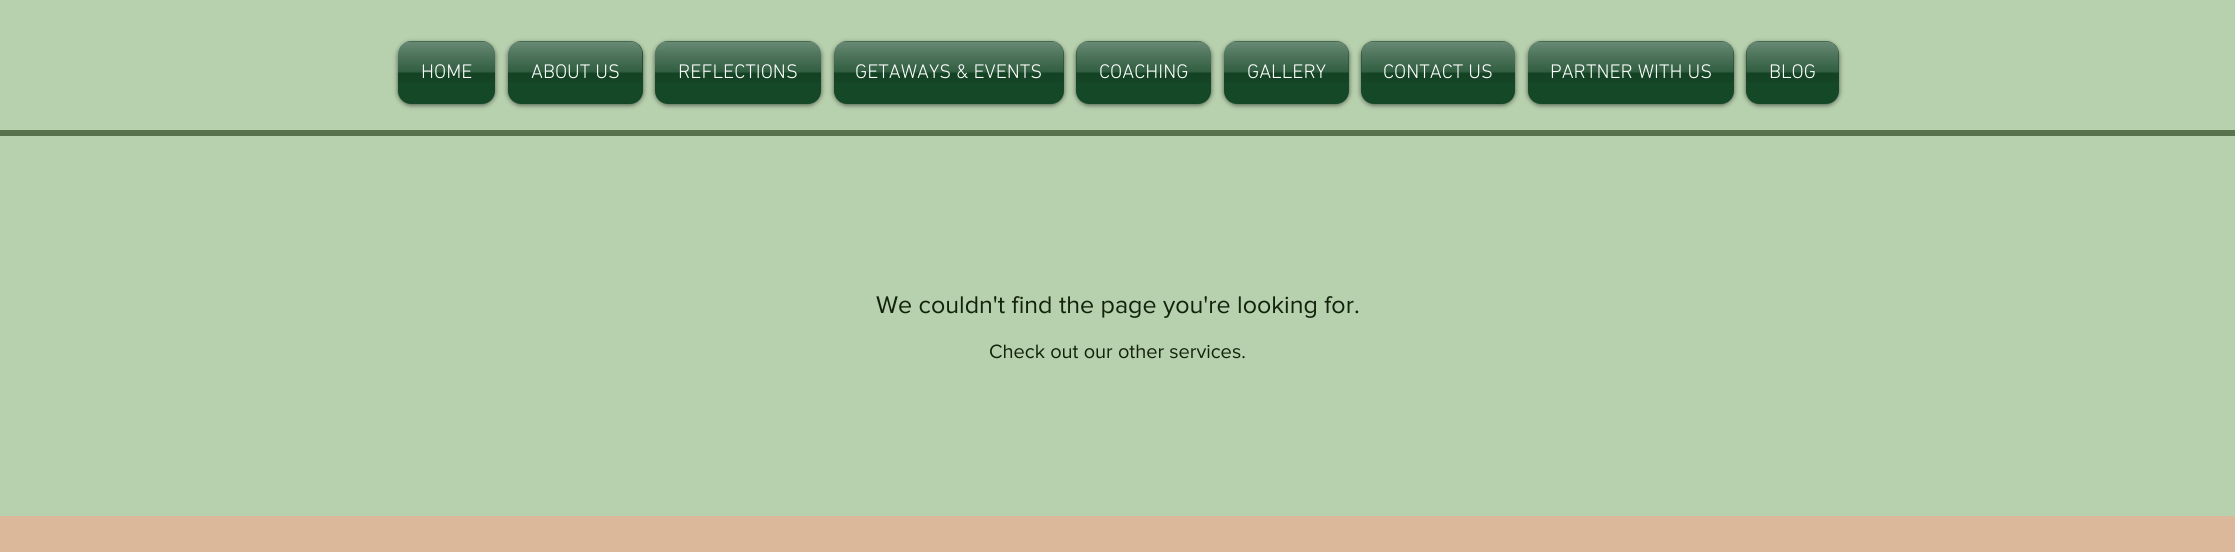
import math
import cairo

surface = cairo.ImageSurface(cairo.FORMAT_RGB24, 2235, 552)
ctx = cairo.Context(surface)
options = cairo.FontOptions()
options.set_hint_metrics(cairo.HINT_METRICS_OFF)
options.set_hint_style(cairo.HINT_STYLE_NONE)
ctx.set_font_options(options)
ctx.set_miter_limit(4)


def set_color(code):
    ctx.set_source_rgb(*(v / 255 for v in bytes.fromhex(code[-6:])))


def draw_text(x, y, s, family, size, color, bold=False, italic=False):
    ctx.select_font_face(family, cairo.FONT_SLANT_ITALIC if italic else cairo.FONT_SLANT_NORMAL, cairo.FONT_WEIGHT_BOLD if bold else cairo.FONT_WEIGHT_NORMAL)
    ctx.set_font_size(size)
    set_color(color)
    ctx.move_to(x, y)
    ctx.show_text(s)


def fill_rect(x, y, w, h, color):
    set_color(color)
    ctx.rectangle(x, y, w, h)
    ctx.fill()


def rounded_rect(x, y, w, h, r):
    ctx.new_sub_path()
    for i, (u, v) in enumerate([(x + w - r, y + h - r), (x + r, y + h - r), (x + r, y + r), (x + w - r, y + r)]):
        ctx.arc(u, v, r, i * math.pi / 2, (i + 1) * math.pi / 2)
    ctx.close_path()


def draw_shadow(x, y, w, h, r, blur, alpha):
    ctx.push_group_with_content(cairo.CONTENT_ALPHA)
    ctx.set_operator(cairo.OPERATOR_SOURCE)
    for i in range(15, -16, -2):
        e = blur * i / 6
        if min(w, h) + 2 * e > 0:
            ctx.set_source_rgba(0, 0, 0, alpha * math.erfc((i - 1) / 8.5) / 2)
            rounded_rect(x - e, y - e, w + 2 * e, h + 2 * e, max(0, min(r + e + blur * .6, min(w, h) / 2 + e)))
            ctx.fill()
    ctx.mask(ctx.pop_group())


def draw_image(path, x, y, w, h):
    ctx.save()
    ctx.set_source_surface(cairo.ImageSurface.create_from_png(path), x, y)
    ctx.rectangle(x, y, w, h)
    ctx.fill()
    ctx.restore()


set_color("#dbb89a")
ctx.paint()
fill_rect(0, 0, 2235, 130, "#b7d0ad")
fill_rect(0, 130, 2235, 6, "#57724c")
set_color("#000000")
draw_shadow(398, 43, 97, 62, 13, 2.5, 0.6)
set_color("#154827")
rounded_rect(398, 41, 97, 63, 13)
ctx.fill()
draw_image("assets/img1.png", 397, 41, 98, 41)
draw_text(421, 78, "HOME", "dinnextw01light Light", 20, "#ffffff")
set_color("#000000")
draw_shadow(508, 43, 135, 62, 13, 2.5, 0.6)
set_color("#154827")
rounded_rect(508, 41, 135, 63, 13)
ctx.fill()
draw_image("assets/img2.png", 507, 41, 136, 41)
draw_text(531, 78, "ABOUT US", "dinnextw01light Light", 20, "#ffffff")
set_color("#000000")
draw_shadow(655, 43, 166, 62, 13, 2.5, 0.6)
set_color("#154827")
rounded_rect(655, 41, 166, 63, 13)
ctx.fill()
draw_image("assets/img3.png", 655, 41, 166, 41)
draw_text(678, 78, "REFLECTIONS", "dinnextw01light Light", 20, "#ffffff")
set_color("#000000")
draw_shadow(834, 43, 230, 62, 13, 2.5, 0.6)
set_color("#154827")
rounded_rect(834, 41, 230, 63, 13)
ctx.fill()
draw_image("assets/img4.png", 834, 41, 230, 41)
draw_text(855, 78, "GETAWAYS & EVENTS", "dinnextw01light Light", 20, "#ffffff")
set_color("#000000")
draw_shadow(1076, 43, 135, 62, 13, 2.5, 0.6)
set_color("#154827")
rounded_rect(1076, 41, 135, 63, 13)
ctx.fill()
draw_image("assets/img5.png", 1076, 41, 135, 41)
draw_text(1099, 78, "COACHING", "dinnextw01light Light", 20, "#ffffff")
set_color("#000000")
draw_shadow(1224, 43, 125, 62, 13, 2.5, 0.6)
set_color("#154827")
rounded_rect(1224, 41, 125, 63, 13)
ctx.fill()
draw_image("assets/img6.png", 1224, 41, 125, 41)
draw_text(1247, 78, "GALLERY", "dinnextw01light Light", 20, "#ffffff")
set_color("#000000")
draw_shadow(1361, 43, 154, 62, 13, 2.5, 0.6)
set_color("#154827")
rounded_rect(1361, 41, 154, 63, 13)
ctx.fill()
draw_image("assets/img7.png", 1361, 41, 154, 41)
draw_text(1383, 78, "CONTACT US", "dinnextw01light Light", 20, "#ffffff")
set_color("#000000")
draw_shadow(1528, 43, 206, 62, 13, 2.5, 0.6)
set_color("#154827")
rounded_rect(1528, 41, 206, 63, 13)
ctx.fill()
draw_image("assets/img8.png", 1527, 41, 207, 41)
draw_text(1550, 78, "PARTNER WITH US", "dinnextw01light Light", 20, "#ffffff")
set_color("#000000")
draw_shadow(1746, 43, 93, 62, 13, 2.5, 0.6)
set_color("#154827")
rounded_rect(1746, 41, 93, 63, 13)
ctx.fill()
draw_image("assets/img9.png", 1746, 41, 93, 41)
draw_text(1769, 78, "BLOG", "dinnextw01light Light", 20, "#ffffff")
fill_rect(0, 136, 2235, 380, "#b7d0ad")
draw_text(876, 313, "We couldn't find the page you're looking for.", "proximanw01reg", 25, "#12220b")
draw_text(989, 358, "Check out our other services.", "proximanw01reg", 20, "#12220b")
surface.write_to_png("output.png")
